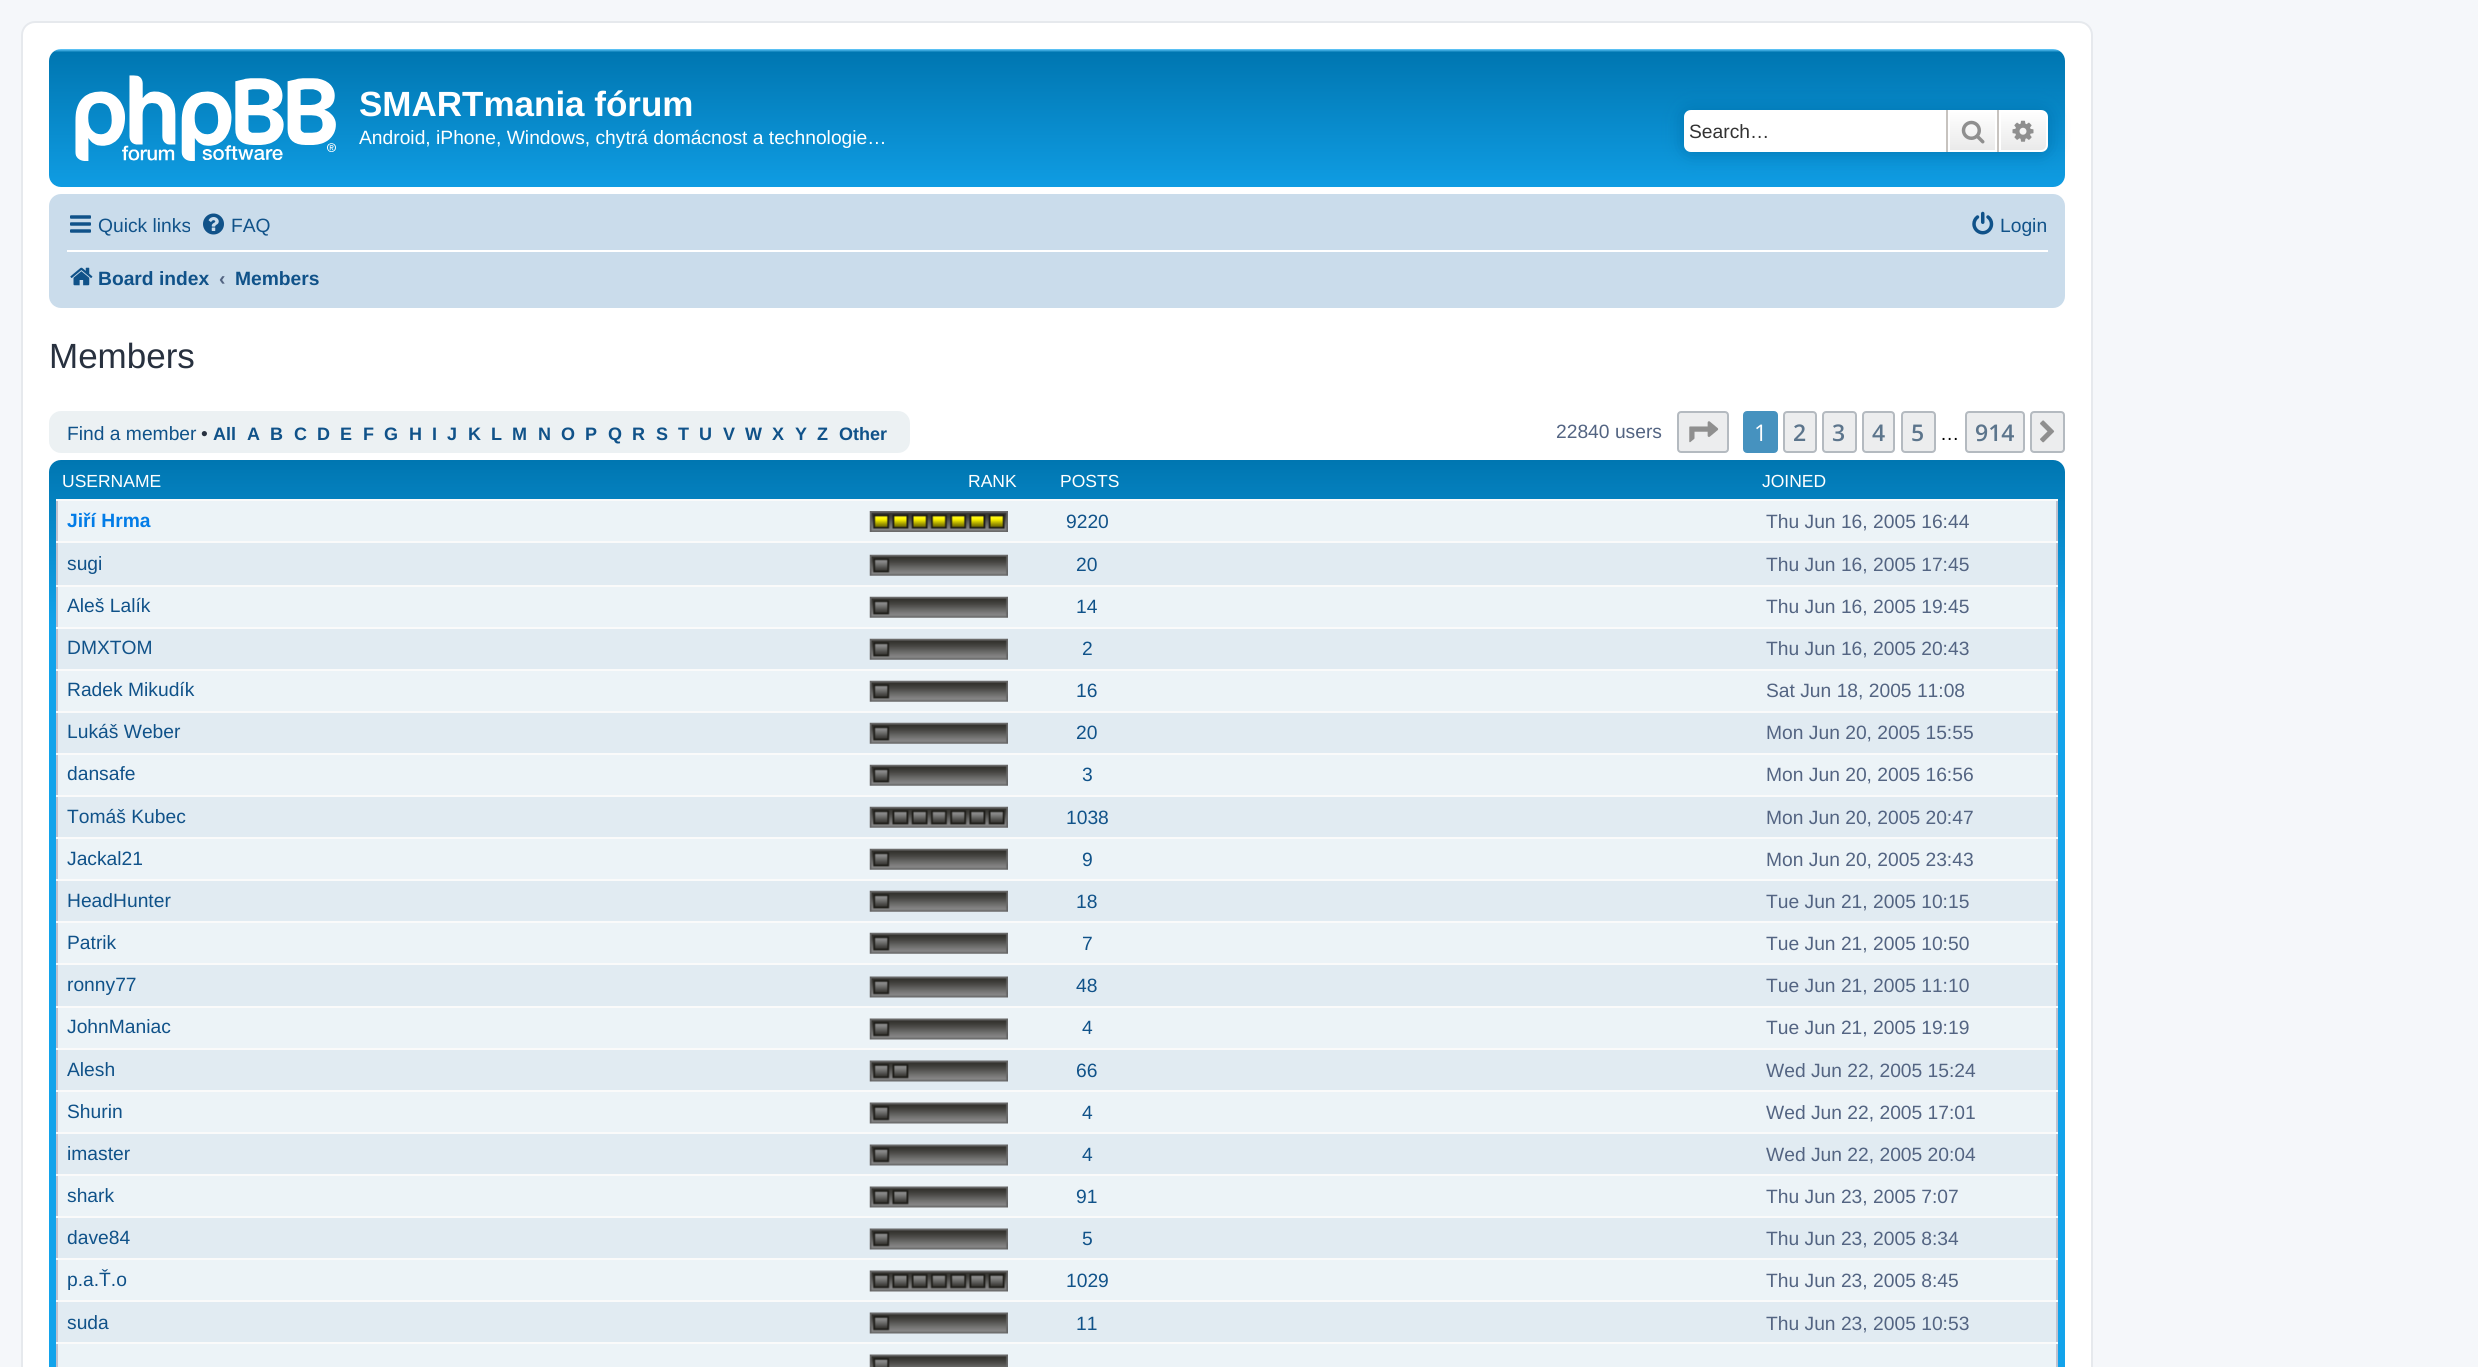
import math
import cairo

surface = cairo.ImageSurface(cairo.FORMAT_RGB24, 2478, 1367)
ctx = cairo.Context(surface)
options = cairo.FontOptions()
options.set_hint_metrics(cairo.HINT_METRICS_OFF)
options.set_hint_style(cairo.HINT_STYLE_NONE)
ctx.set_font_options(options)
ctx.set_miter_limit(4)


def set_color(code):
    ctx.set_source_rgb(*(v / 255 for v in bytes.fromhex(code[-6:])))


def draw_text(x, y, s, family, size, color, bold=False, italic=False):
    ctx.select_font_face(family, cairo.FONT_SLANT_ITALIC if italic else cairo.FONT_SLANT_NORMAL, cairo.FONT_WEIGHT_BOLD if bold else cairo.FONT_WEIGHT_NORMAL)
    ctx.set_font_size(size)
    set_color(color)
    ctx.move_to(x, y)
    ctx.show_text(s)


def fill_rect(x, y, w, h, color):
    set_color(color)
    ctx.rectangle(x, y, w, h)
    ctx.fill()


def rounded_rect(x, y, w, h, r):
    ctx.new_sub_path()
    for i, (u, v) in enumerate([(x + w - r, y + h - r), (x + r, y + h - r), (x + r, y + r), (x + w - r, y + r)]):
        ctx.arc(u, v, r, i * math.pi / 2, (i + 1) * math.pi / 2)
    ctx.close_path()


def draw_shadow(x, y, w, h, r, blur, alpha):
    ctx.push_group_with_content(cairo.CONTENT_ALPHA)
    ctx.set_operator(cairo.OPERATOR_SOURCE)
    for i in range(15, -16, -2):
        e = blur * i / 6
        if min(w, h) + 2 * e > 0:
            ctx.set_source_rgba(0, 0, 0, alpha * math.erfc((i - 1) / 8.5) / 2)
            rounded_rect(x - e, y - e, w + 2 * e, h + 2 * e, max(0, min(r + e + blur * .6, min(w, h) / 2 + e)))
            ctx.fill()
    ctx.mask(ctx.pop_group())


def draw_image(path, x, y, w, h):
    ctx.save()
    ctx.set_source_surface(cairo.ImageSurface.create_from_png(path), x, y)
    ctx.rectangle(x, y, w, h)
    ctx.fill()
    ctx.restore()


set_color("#f5f7fa")
ctx.paint()
set_color("#ffffff")
rounded_rect(22, 22, 2070, 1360, 13)
ctx.fill_preserve()
set_color("#e6e9ed")
ctx.stroke()
gradient = cairo.LinearGradient(1057, 49, 1057, 210)
gradient.add_color_stop_rgba(0, 0.416, 0.808, 1, 1)
gradient.add_color_stop_rgba(0.02, 0, 0.463, 0.694, 1)
gradient.add_color_stop_rgba(1, 0.071, 0.639, 0.922, 1)
ctx.set_source(gradient)
rounded_rect(49, 49, 2016, 138, 12)
ctx.fill()
draw_image("assets/img1.png", 75, 75, 261, 86)
draw_text(359, 116, "SMARTmania fórum", "Liberation Sans", 35, "#ffffff", bold=True)
draw_text(359, 144, "Android, iPhone, Windows, chytrá domácnost a technologie…", "Liberation Sans", 19.25, "#ffffff")
set_color("#0075b0")
draw_shadow(1684, 110, 364, 42, 7, 9, 1)
set_color("#ffffff")
ctx.new_path()
ctx.move_to(1691, 110)
ctx.line_to(1946, 110)
ctx.line_to(1946, 152)
ctx.line_to(1691, 152)
ctx.curve_to(1687, 152, 1684, 149, 1684, 145)
ctx.line_to(1684, 117)
ctx.curve_to(1684, 113, 1687, 110, 1691, 110)
ctx.close_path()
ctx.fill()
draw_text(1689, 138, "Search…", "Liberation Sans", 19.25, "#333333")
gradient = cairo.LinearGradient(1972, 110, 1972, 152)
gradient.add_color_stop_rgba(0, 1, 1, 1, 1)
gradient.add_color_stop_rgba(1, 0.914, 0.914, 0.914, 1)
ctx.set_source(gradient)
ctx.rectangle(1950, 112, 45, 38)
ctx.fill()
ctx.rectangle(1949, 111, 47, 40)
set_color("#ffffff")
ctx.stroke()
fill_rect(1997, 110, 2, 42, "#c7c3bf")
fill_rect(1946, 110, 2, 42, "#c7c3bf")
draw_image("assets/img2.png", 1961, 120, 24, 24)
gradient = cairo.LinearGradient(2023, 110, 2023, 152)
gradient.add_color_stop_rgba(0, 1, 1, 1, 1)
gradient.add_color_stop_rgba(1, 0.914, 0.914, 0.914, 1)
ctx.set_source(gradient)
ctx.new_path()
ctx.move_to(2000, 111)
ctx.line_to(2041, 111)
ctx.curve_to(2044.5, 111, 2047, 113.5, 2047, 117)
ctx.line_to(2047, 145)
ctx.curve_to(2047, 148.5, 2044.5, 151, 2041, 151)
ctx.line_to(2000, 151)
ctx.close_path()
ctx.fill_preserve()
set_color("#ffffff")
ctx.stroke()
draw_image("assets/img3.png", 2012, 120, 22, 22)
set_color("#cadceb")
rounded_rect(49, 194, 2016, 114, 12)
ctx.fill()
draw_image("assets/img4.png", 70, 215, 21, 18)
draw_text(98, 232, "Quick links", "Liberation Sans", 19.25, "#105289")
draw_image("assets/img5.png", 203, 213, 21, 22)
draw_text(231, 232, "FAQ", "Liberation Sans", 19.25, "#105289")
draw_image("assets/img6.png", 1972, 211, 22, 24)
draw_text(2000, 232, "Login", "Liberation Sans", 19.25, "#105289")
fill_rect(67, 250, 1981, 2, "#ffffff")
draw_image("assets/img7.png", 70, 267, 23, 19)
draw_text(98, 285, "Board index", "Liberation Sans", 19.25, "#105289", bold=True)
draw_text(219, 285, "‹", "Liberation Sans", 19.25, "#536482", bold=True)
draw_text(235, 285, "Members", "Liberation Sans", 19.25, "#105289", bold=True)
draw_text(49, 368, "Members", "Liberation Sans", 35, "#28313f")
set_color("#ecf1f3")
rounded_rect(49, 411, 861, 42, 12)
ctx.fill()
draw_text(67, 440, "Find a member", "Liberation Sans", 19.25, "#105289")
draw_text(201, 440, "•", "Liberation Sans", 19.25, "#28313f")
draw_text(213, 440, "All", "Liberation Sans", 18, "#105289", bold=True)
draw_text(247, 440, "A", "Liberation Sans", 18, "#105289", bold=True)
draw_text(270, 440, "B", "Liberation Sans", 18, "#105289", bold=True)
draw_text(294, 440, "C", "Liberation Sans", 18, "#105289", bold=True)
draw_text(317, 440, "D", "Liberation Sans", 18, "#105289", bold=True)
draw_text(340, 440, "E", "Liberation Sans", 18, "#105289", bold=True)
draw_text(363, 440, "F", "Liberation Sans", 18, "#105289", bold=True)
draw_text(384, 440, "G", "Liberation Sans", 18, "#105289", bold=True)
draw_text(409, 440, "H", "Liberation Sans", 18, "#105289", bold=True)
draw_text(432, 440, "I", "Liberation Sans", 18, "#105289", bold=True)
draw_text(447, 440, "J", "Liberation Sans", 18, "#105289", bold=True)
draw_text(468, 440, "K", "Liberation Sans", 18, "#105289", bold=True)
draw_text(491, 440, "L", "Liberation Sans", 18, "#105289", bold=True)
draw_text(512, 440, "M", "Liberation Sans", 18, "#105289", bold=True)
draw_text(538, 440, "N", "Liberation Sans", 18, "#105289", bold=True)
draw_text(561, 440, "O", "Liberation Sans", 18, "#105289", bold=True)
draw_text(585, 440, "P", "Liberation Sans", 18, "#105289", bold=True)
draw_text(608, 440, "Q", "Liberation Sans", 18, "#105289", bold=True)
draw_text(632, 440, "R", "Liberation Sans", 18, "#105289", bold=True)
draw_text(656, 440, "S", "Liberation Sans", 18, "#105289", bold=True)
draw_text(678, 440, "T", "Liberation Sans", 18, "#105289", bold=True)
draw_text(699, 440, "U", "Liberation Sans", 18, "#105289", bold=True)
draw_text(723, 440, "V", "Liberation Sans", 18, "#105289", bold=True)
draw_text(745, 440, "W", "Liberation Sans", 18, "#105289", bold=True)
draw_text(772, 440, "X", "Liberation Sans", 18, "#105289", bold=True)
draw_text(795, 440, "Y", "Liberation Sans", 18, "#105289", bold=True)
draw_text(817, 440, "Z", "Liberation Sans", 18, "#105289", bold=True)
draw_text(839, 440, "Other", "Liberation Sans", 18, "#105289", bold=True)
draw_text(1556, 438, "22840 users", "Liberation Sans", 19.25, "#536482")
set_color("#ecedee")
rounded_rect(1678, 412, 50, 40, 3)
ctx.fill_preserve()
set_color("#b4bac0")
ctx.stroke()
draw_image("assets/img8.png", 1689, 421, 30, 22)
set_color("#4692bf")
rounded_rect(1744, 412, 33, 40, 3)
ctx.fill_preserve()
ctx.stroke()
draw_text(1754, 441, "1", "Open Sans", 23, "#ffffff")
set_color("#ecedee")
rounded_rect(1784, 412, 32, 40, 3)
ctx.fill_preserve()
set_color("#b4bac0")
ctx.stroke()
draw_text(1793, 441, "2", "Open Sans SemiBold", 23, "#5c758c")
set_color("#ecedee")
rounded_rect(1823, 412, 33, 40, 3)
ctx.fill_preserve()
set_color("#b4bac0")
ctx.stroke()
draw_text(1832, 441, "3", "Open Sans SemiBold", 23, "#5c758c")
set_color("#ecedee")
rounded_rect(1863, 412, 31, 40, 3)
ctx.fill_preserve()
set_color("#b4bac0")
ctx.stroke()
draw_text(1872, 441, "4", "Open Sans SemiBold", 23, "#5c758c")
set_color("#ecedee")
rounded_rect(1902, 412, 33, 40, 3)
ctx.fill_preserve()
set_color("#b4bac0")
ctx.stroke()
draw_text(1911, 441, "5", "Open Sans SemiBold", 23, "#5c758c")
draw_text(1940, 440, "…", "Liberation Sans", 19.25, "#000000")
set_color("#ecedee")
rounded_rect(1966, 412, 58, 40, 3)
ctx.fill_preserve()
set_color("#b4bac0")
ctx.stroke()
draw_text(1975, 441, "914", "Open Sans SemiBold", 23, "#5c758c")
set_color("#ecedee")
rounded_rect(2031, 412, 33, 40, 3)
ctx.fill_preserve()
set_color("#b4bac0")
ctx.stroke()
draw_image("assets/img9.png", 2040, 420, 15, 23)
gradient = cairo.LinearGradient(1057, 460, 1057, 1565)
gradient.add_color_stop_rgba(0, 0.416, 0.808, 1, 1)
gradient.add_color_stop_rgba(0, 0, 0.463, 0.694, 1)
gradient.add_color_stop_rgba(0.15, 0.071, 0.639, 0.922, 1)
gradient.add_color_stop_rgba(1, 0.071, 0.639, 0.922, 1)
ctx.set_source(gradient)
rounded_rect(49, 460, 2016, 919, 12)
ctx.fill()
draw_text(62, 487, "USERNAME", "Liberation Sans", 17.5, "#ffffff")
draw_text(968, 487, "RANK", "Liberation Sans", 17.5, "#ffffff")
draw_text(1060, 487, "POSTS", "Liberation Sans", 17.5, "#ffffff")
draw_text(1762, 487, "JOINED", "Liberation Sans", 17.5, "#ffffff")
fill_rect(58, 1344, 1998, 23, "#ecf3f7")
fill_rect(2056, 499, 2, 868, "#bfc1cf")
fill_rect(56, 499, 2, 868, "#bfc1cf")
fill_rect(56, 1342, 2002, 2, "#fafafa")
draw_image("assets/img10.png", 869, 1354, 139, 13)
fill_rect(58, 501, 1998, 40, "#ecf3f7")
draw_text(67, 527, "Jiří Hrma", "Liberation Sans", 19.25, "#027ce7", bold=True)
draw_image("assets/img11.png", 869, 511, 139, 21)
draw_text(1066, 528, "9220", "Liberation Sans", 19.25, "#105289")
fill_rect(56, 499, 2002, 2, "#fafafa")
draw_text(1766, 528, "Thu Jun 16, 2005 16:44", "Liberation Sans", 19.25, "#536482")
fill_rect(58, 543, 1998, 42, "#e1ebf2")
draw_text(67, 570, "sugi", "Liberation Sans", 19.25, "#105289")
draw_image("assets/img12.png", 869, 554, 139, 22)
draw_text(1076, 571, "20", "Liberation Sans", 19.25, "#105289")
fill_rect(56, 541, 2002, 2, "#fafafa")
draw_text(1766, 571, "Thu Jun 16, 2005 17:45", "Liberation Sans", 19.25, "#536482")
fill_rect(58, 587, 1998, 40, "#ecf3f7")
draw_text(67, 612, "Aleš Lalík", "Liberation Sans", 19.25, "#105289")
draw_image("assets/img13.png", 869, 596, 139, 22)
draw_text(1076, 613, "14", "Liberation Sans", 19.25, "#105289")
fill_rect(56, 585, 2002, 2, "#fafafa")
draw_text(1766, 613, "Thu Jun 16, 2005 19:45", "Liberation Sans", 19.25, "#536482")
fill_rect(58, 629, 1998, 40, "#e1ebf2")
draw_text(67, 654, "DMXTOM", "Liberation Sans", 19.25, "#105289")
draw_image("assets/img12.png", 869, 638, 139, 22)
draw_text(1082, 655, "2", "Liberation Sans", 19.25, "#105289")
fill_rect(56, 627, 2002, 2, "#fafafa")
draw_text(1766, 655, "Thu Jun 16, 2005 20:43", "Liberation Sans", 19.25, "#536482")
fill_rect(58, 671, 1998, 40, "#ecf3f7")
draw_text(67, 696, "Radek Mikudík", "Liberation Sans", 19.25, "#105289")
draw_image("assets/img13.png", 869, 680, 139, 22)
draw_text(1076, 697, "16", "Liberation Sans", 19.25, "#105289")
fill_rect(56, 669, 2002, 2, "#fafafa")
draw_text(1766, 697, "Sat Jun 18, 2005 11:08", "Liberation Sans", 19.25, "#536482")
fill_rect(58, 713, 1998, 40, "#e1ebf2")
draw_text(67, 738, "Lukáš Weber", "Liberation Sans", 19.25, "#105289")
draw_image("assets/img12.png", 869, 722, 139, 22)
draw_text(1076, 739, "20", "Liberation Sans", 19.25, "#105289")
fill_rect(56, 711, 2002, 2, "#fafafa")
draw_text(1766, 739, "Mon Jun 20, 2005 15:55", "Liberation Sans", 19.25, "#536482")
fill_rect(58, 755, 1998, 40, "#ecf3f7")
draw_text(67, 780, "dansafe", "Liberation Sans", 19.25, "#105289")
draw_image("assets/img13.png", 869, 764, 139, 22)
draw_text(1082, 781, "3", "Liberation Sans", 19.25, "#105289")
fill_rect(56, 753, 2002, 2, "#fafafa")
draw_text(1766, 781, "Mon Jun 20, 2005 16:56", "Liberation Sans", 19.25, "#536482")
fill_rect(58, 797, 1998, 40, "#e1ebf2")
draw_text(67, 823, "Tomáš Kubec", "Liberation Sans", 19.25, "#105289")
draw_image("assets/img14.png", 869, 806, 139, 22)
draw_text(1066, 824, "1038", "Liberation Sans", 19.25, "#105289")
fill_rect(56, 795, 2002, 2, "#fafafa")
draw_text(1766, 824, "Mon Jun 20, 2005 20:47", "Liberation Sans", 19.25, "#536482")
fill_rect(58, 839, 1998, 40, "#ecf3f7")
draw_text(67, 865, "Jackal21", "Liberation Sans", 19.25, "#105289")
draw_image("assets/img13.png", 869, 848, 139, 22)
draw_text(1082, 866, "9", "Liberation Sans", 19.25, "#105289")
fill_rect(56, 837, 2002, 2, "#fafafa")
draw_text(1766, 866, "Mon Jun 20, 2005 23:43", "Liberation Sans", 19.25, "#536482")
fill_rect(58, 881, 1998, 40, "#e1ebf2")
draw_text(67, 907, "HeadHunter", "Liberation Sans", 19.25, "#105289")
draw_image("assets/img12.png", 869, 890, 139, 22)
draw_text(1076, 908, "18", "Liberation Sans", 19.25, "#105289")
fill_rect(56, 879, 2002, 2, "#fafafa")
draw_text(1766, 908, "Tue Jun 21, 2005 10:15", "Liberation Sans", 19.25, "#536482")
fill_rect(58, 923, 1998, 40, "#ecf3f7")
draw_text(67, 949, "Patrik", "Liberation Sans", 19.25, "#105289")
draw_image("assets/img13.png", 869, 932, 139, 22)
draw_text(1082, 950, "7", "Liberation Sans", 19.25, "#105289")
fill_rect(56, 921, 2002, 2, "#fafafa")
draw_text(1766, 950, "Tue Jun 21, 2005 10:50", "Liberation Sans", 19.25, "#536482")
fill_rect(58, 965, 1998, 41, "#e1ebf2")
draw_text(67, 991, "ronny77", "Liberation Sans", 19.25, "#105289")
draw_image("assets/img15.png", 869, 976, 139, 22)
draw_text(1076, 992, "48", "Liberation Sans", 19.25, "#105289")
fill_rect(56, 963, 2002, 2, "#fafafa")
draw_text(1766, 992, "Tue Jun 21, 2005 11:10", "Liberation Sans", 19.25, "#536482")
fill_rect(58, 1008, 1998, 40, "#ecf3f7")
draw_text(67, 1033, "JohnManiac", "Liberation Sans", 19.25, "#105289")
draw_image("assets/img16.png", 869, 1018, 139, 22)
draw_text(1082, 1034, "4", "Liberation Sans", 19.25, "#105289")
fill_rect(56, 1006, 2002, 2, "#fafafa")
draw_text(1766, 1034, "Tue Jun 21, 2005 19:19", "Liberation Sans", 19.25, "#536482")
fill_rect(58, 1050, 1998, 40, "#e1ebf2")
draw_text(67, 1076, "Alesh", "Liberation Sans", 19.25, "#105289")
draw_image("assets/img17.png", 869, 1060, 139, 22)
draw_text(1076, 1077, "66", "Liberation Sans", 19.25, "#105289")
fill_rect(56, 1048, 2002, 2, "#fafafa")
draw_text(1766, 1077, "Wed Jun 22, 2005 15:24", "Liberation Sans", 19.25, "#536482")
fill_rect(58, 1092, 1998, 40, "#ecf3f7")
draw_text(67, 1118, "Shurin", "Liberation Sans", 19.25, "#105289")
draw_image("assets/img16.png", 869, 1102, 139, 22)
draw_text(1082, 1119, "4", "Liberation Sans", 19.25, "#105289")
fill_rect(56, 1090, 2002, 2, "#fafafa")
draw_text(1766, 1119, "Wed Jun 22, 2005 17:01", "Liberation Sans", 19.25, "#536482")
fill_rect(58, 1134, 1998, 40, "#e1ebf2")
draw_text(67, 1160, "imaster", "Liberation Sans", 19.25, "#105289")
draw_image("assets/img15.png", 869, 1144, 139, 22)
draw_text(1082, 1161, "4", "Liberation Sans", 19.25, "#105289")
fill_rect(56, 1132, 2002, 2, "#fafafa")
draw_text(1766, 1161, "Wed Jun 22, 2005 20:04", "Liberation Sans", 19.25, "#536482")
fill_rect(58, 1176, 1998, 40, "#ecf3f7")
draw_text(67, 1202, "shark", "Liberation Sans", 19.25, "#105289")
draw_image("assets/img18.png", 869, 1186, 139, 22)
draw_text(1076, 1203, "91", "Liberation Sans", 19.25, "#105289")
fill_rect(56, 1174, 2002, 2, "#fafafa")
draw_text(1766, 1203, "Thu Jun 23, 2005 7:07", "Liberation Sans", 19.25, "#536482")
fill_rect(58, 1218, 1998, 40, "#e1ebf2")
draw_text(67, 1244, "dave84", "Liberation Sans", 19.25, "#105289")
draw_image("assets/img15.png", 869, 1228, 139, 22)
draw_text(1082, 1245, "5", "Liberation Sans", 19.25, "#105289")
fill_rect(56, 1216, 2002, 2, "#fafafa")
draw_text(1766, 1245, "Thu Jun 23, 2005 8:34", "Liberation Sans", 19.25, "#536482")
fill_rect(58, 1260, 1998, 40, "#ecf3f7")
draw_text(67, 1286, "p.a.Ť.o", "Liberation Sans", 19.25, "#105289")
draw_image("assets/img19.png", 869, 1270, 139, 22)
draw_text(1066, 1287, "1029", "Liberation Sans", 19.25, "#105289")
fill_rect(56, 1258, 2002, 2, "#fafafa")
draw_text(1766, 1287, "Thu Jun 23, 2005 8:45", "Liberation Sans", 19.25, "#536482")
fill_rect(58, 1302, 1998, 40, "#e1ebf2")
draw_text(67, 1329, "suda", "Liberation Sans", 19.25, "#105289")
draw_image("assets/img15.png", 869, 1312, 139, 22)
draw_text(1076, 1330, "11", "Liberation Sans", 19.25, "#105289")
fill_rect(56, 1300, 2002, 2, "#fafafa")
draw_text(1766, 1330, "Thu Jun 23, 2005 10:53", "Liberation Sans", 19.25, "#536482")
surface.write_to_png("output.png")
